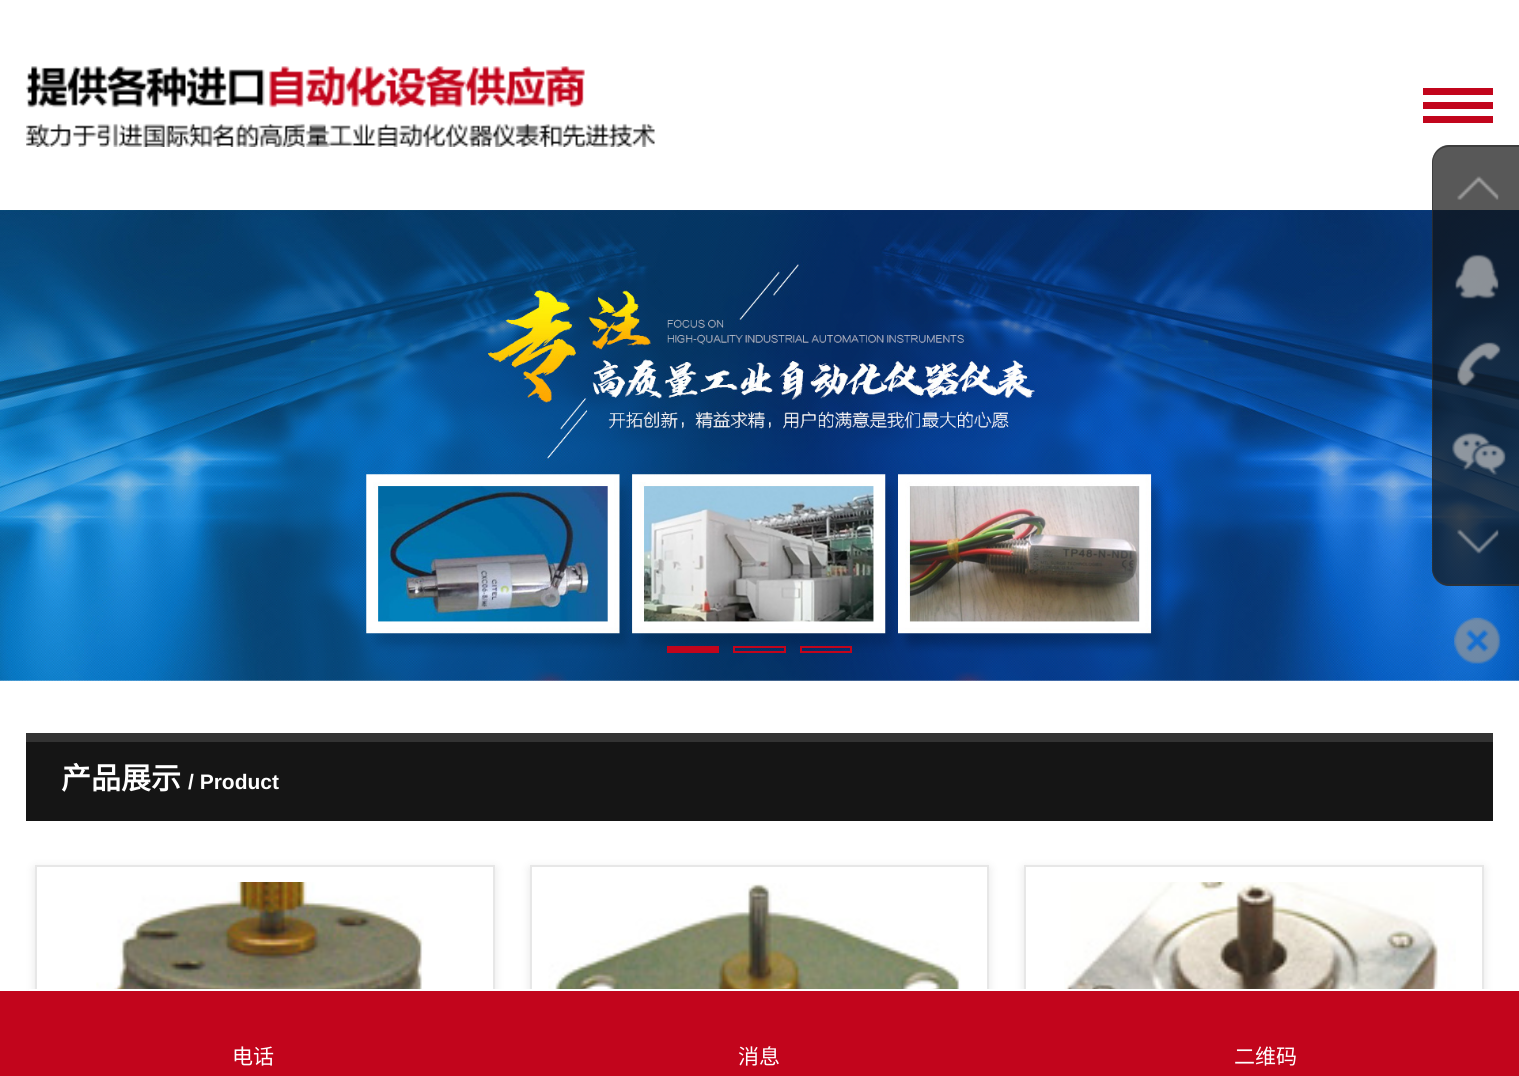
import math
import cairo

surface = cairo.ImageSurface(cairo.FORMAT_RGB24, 1519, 1076)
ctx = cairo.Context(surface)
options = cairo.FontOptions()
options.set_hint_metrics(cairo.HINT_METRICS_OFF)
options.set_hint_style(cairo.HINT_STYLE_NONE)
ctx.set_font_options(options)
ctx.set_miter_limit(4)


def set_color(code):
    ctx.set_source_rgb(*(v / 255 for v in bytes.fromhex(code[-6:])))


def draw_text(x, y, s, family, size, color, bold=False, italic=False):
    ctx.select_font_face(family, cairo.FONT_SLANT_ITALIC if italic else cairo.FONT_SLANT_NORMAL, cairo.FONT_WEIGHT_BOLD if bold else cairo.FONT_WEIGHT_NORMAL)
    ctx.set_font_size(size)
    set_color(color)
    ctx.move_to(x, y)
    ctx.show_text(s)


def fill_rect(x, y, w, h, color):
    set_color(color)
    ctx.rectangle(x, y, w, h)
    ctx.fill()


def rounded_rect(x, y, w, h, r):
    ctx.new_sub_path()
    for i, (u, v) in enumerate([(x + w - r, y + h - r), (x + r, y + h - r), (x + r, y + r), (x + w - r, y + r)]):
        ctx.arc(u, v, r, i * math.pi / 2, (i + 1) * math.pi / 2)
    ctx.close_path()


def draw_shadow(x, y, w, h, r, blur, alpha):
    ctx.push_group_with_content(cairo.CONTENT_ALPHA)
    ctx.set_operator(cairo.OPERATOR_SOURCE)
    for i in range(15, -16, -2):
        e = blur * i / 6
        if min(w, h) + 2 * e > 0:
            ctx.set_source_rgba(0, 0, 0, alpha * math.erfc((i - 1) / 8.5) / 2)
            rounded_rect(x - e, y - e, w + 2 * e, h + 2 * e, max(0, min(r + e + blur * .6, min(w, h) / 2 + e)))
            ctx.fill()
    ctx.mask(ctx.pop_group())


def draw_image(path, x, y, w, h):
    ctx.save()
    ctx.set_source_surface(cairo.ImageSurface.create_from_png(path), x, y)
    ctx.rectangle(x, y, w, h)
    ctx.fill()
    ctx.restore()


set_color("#ffffff")
ctx.paint()
draw_image("assets/img1.png", 26, 66, 629, 81)
fill_rect(1423, 88, 70, 7, "#c2051c")
fill_rect(1423, 102, 70, 7, "#c2051c")
fill_rect(1423, 116, 70, 7, "#c2051c")
draw_image("assets/img8.png", 0, 210, 1519, 471)
ctx.set_source_rgba(0.067, 0.067, 0.067, 0.7)
ctx.new_path()
ctx.move_to(1450, 145)
ctx.line_to(1519, 145)
ctx.line_to(1519, 586)
ctx.line_to(1450, 586)
ctx.curve_to(1440, 586, 1432, 578, 1432, 568)
ctx.line_to(1432, 163)
ctx.curve_to(1432, 153, 1440, 145, 1450, 145)
ctx.close_path()
ctx.fill()
ctx.set_source_rgba(0.2, 0.2, 0.2, 0.7)
ctx.set_fill_rule(cairo.FILL_RULE_EVEN_ODD)
ctx.new_path()
ctx.move_to(1449, 145)
ctx.line_to(1519, 145)
ctx.line_to(1519, 586)
ctx.line_to(1449, 586)
ctx.curve_to(1439, 586, 1432, 578, 1432, 569)
ctx.line_to(1432, 163)
ctx.curve_to(1432, 153, 1439, 145, 1449, 145)
ctx.close_path()
ctx.move_to(1449, 147)
ctx.line_to(1519, 147)
ctx.line_to(1519, 584)
ctx.line_to(1449, 584)
ctx.curve_to(1440, 584, 1433, 577, 1433, 569)
ctx.line_to(1433, 163)
ctx.curve_to(1433, 154, 1440, 147, 1449, 147)
ctx.close_path()
ctx.fill()
draw_image("assets/img2.png", 1457, 176, 42, 24)
draw_image("assets/img3.png", 1455, 254, 44, 45)
draw_image("assets/img4.png", 1457, 342, 44, 44)
draw_image("assets/img5.png", 1452, 432, 54, 43)
draw_image("assets/img6.png", 1457, 529, 42, 25)
draw_image("assets/img7.png", 1454, 617, 47, 47)
fill_rect(667, 646, 52, 7, "#c2051c")
ctx.rectangle(734, 647, 51, 5)
ctx.stroke()
ctx.rectangle(801, 647, 50, 5)
ctx.stroke()
fill_rect(26, 742, 1467, 79, "#151515")
fill_rect(26, 733, 1467, 9, "#333333")
draw_text(61, 789, "产品展示", "Noto Sans CJK SC", 30, "#ffffff", bold=True)
draw_text(188, 789, "/ Product", "Liberation Sans", 21, "#ffffff", bold=True)
ctx.save()
ctx.new_path()
ctx.move_to(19, 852)
ctx.line_to(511, 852)
ctx.line_to(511, 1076)
ctx.line_to(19, 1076)
ctx.close_path()
ctx.move_to(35, 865)
ctx.line_to(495, 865)
ctx.line_to(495, 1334)
ctx.line_to(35, 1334)
ctx.close_path()
ctx.clip()
set_color("#000000")
draw_shadow(35, 868, 460, 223, 0, 5, 0.1)
ctx.restore()
ctx.rectangle(36, 866, 458, 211)
set_color("#e7e7e7")
ctx.stroke()
draw_image("assets/img9.png", 96, 882, 328, 107)
set_color("#000000")
draw_shadow(530, 868, 459, 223, 0, 5, 0.1)
fill_rect(532, 867, 455, 122, "#ffffff")
ctx.rectangle(531, 866, 457, 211)
set_color("#e7e7e7")
ctx.stroke()
draw_image("assets/img10.png", 548, 883, 413, 106)
ctx.save()
ctx.new_path()
ctx.move_to(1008, 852)
ctx.line_to(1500, 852)
ctx.line_to(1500, 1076)
ctx.line_to(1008, 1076)
ctx.close_path()
ctx.move_to(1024, 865)
ctx.line_to(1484, 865)
ctx.line_to(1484, 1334)
ctx.line_to(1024, 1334)
ctx.close_path()
ctx.clip()
set_color("#000000")
draw_shadow(1024, 868, 460, 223, 0, 5, 0.1)
ctx.restore()
ctx.rectangle(1025, 866, 458, 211)
ctx.stroke()
draw_image("assets/img11.png", 1064, 882, 392, 107)
fill_rect(0, 991, 1519, 85, "#c2051c")
fill_rect(29, 989, 1461, 2, "#ffffff")
draw_text(232, 1064, "电话", "Noto Sans CJK SC", 21, "#ffffff")
draw_text(738, 1064, "消息", "Noto Sans CJK SC", 21, "#ffffff")
draw_text(1234, 1064, "二维码", "Noto Sans CJK SC", 21, "#ffffff")
surface.write_to_png("output.png")
